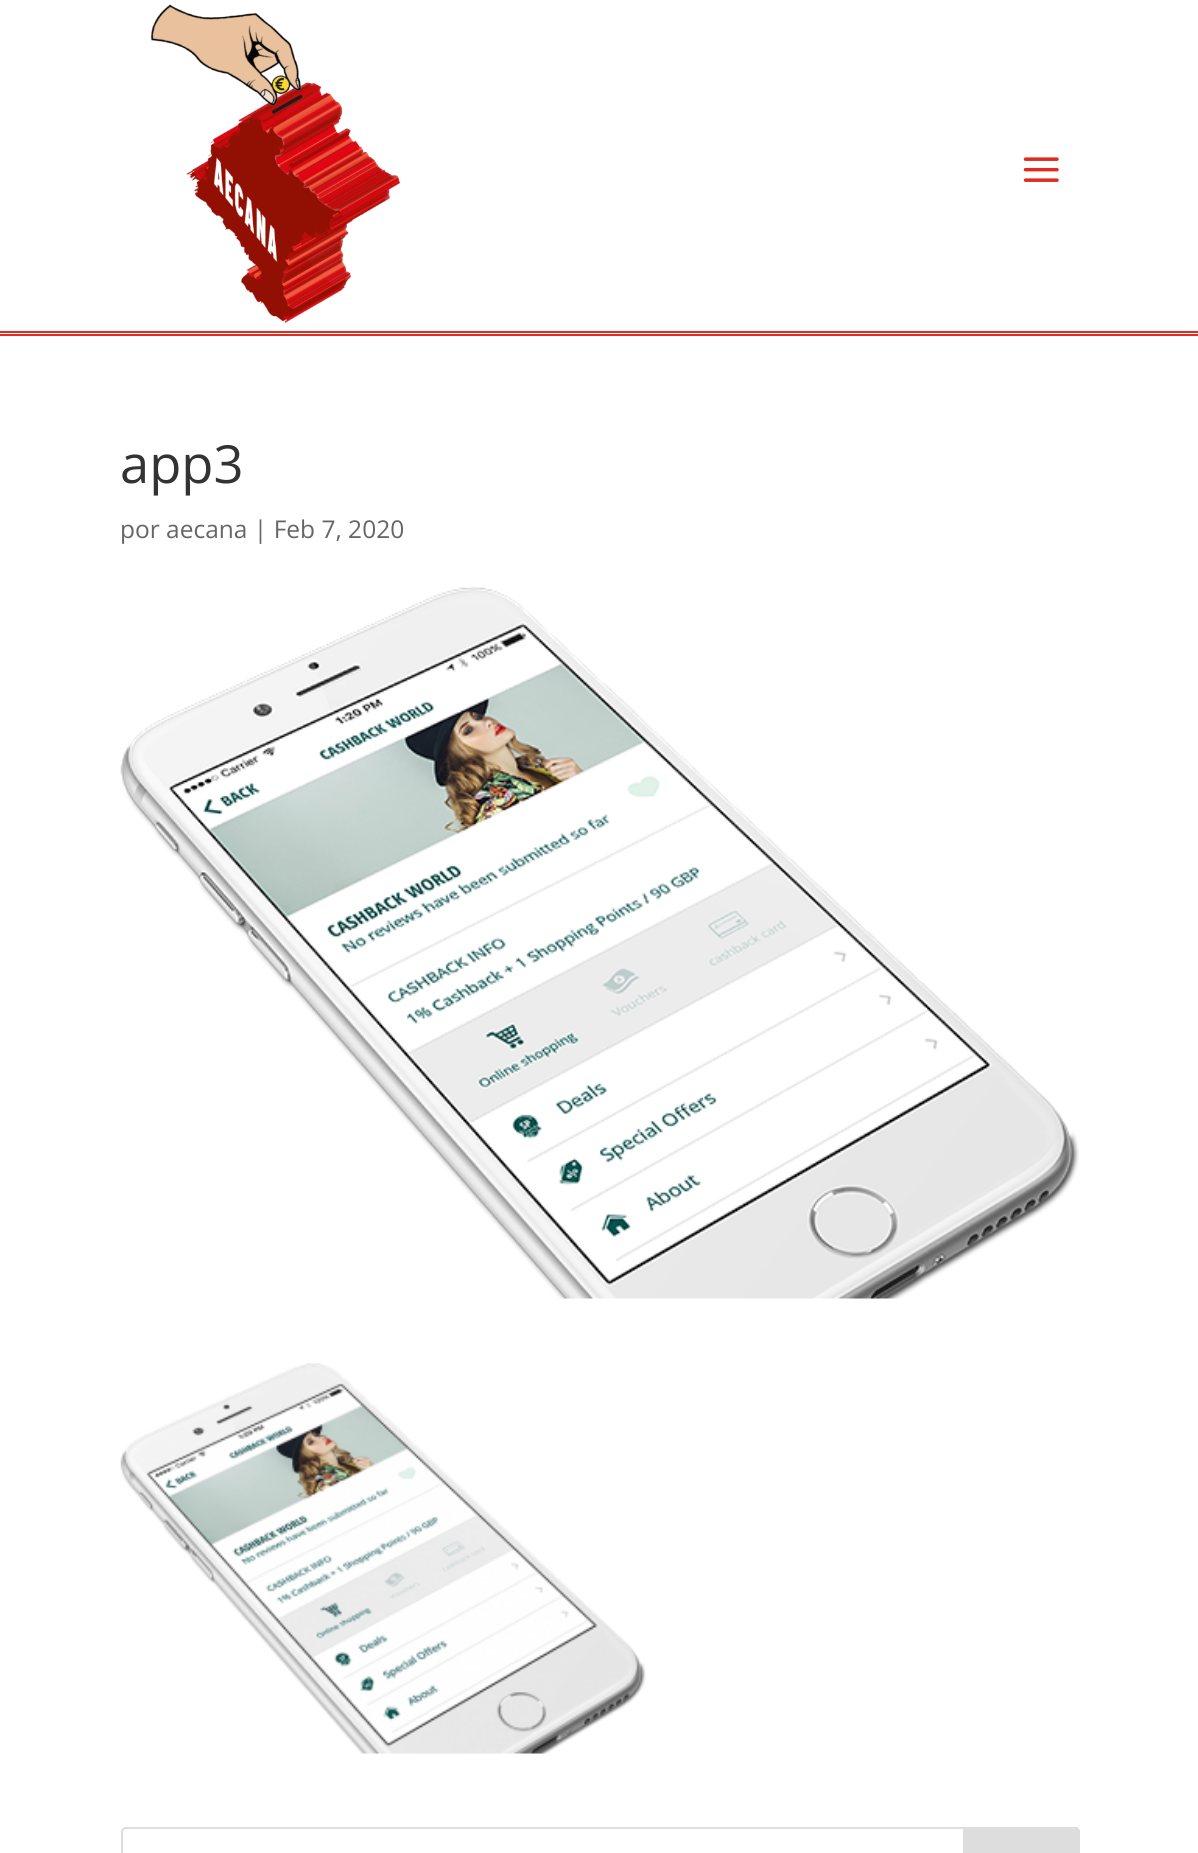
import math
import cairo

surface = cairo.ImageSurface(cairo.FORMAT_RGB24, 1198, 1853)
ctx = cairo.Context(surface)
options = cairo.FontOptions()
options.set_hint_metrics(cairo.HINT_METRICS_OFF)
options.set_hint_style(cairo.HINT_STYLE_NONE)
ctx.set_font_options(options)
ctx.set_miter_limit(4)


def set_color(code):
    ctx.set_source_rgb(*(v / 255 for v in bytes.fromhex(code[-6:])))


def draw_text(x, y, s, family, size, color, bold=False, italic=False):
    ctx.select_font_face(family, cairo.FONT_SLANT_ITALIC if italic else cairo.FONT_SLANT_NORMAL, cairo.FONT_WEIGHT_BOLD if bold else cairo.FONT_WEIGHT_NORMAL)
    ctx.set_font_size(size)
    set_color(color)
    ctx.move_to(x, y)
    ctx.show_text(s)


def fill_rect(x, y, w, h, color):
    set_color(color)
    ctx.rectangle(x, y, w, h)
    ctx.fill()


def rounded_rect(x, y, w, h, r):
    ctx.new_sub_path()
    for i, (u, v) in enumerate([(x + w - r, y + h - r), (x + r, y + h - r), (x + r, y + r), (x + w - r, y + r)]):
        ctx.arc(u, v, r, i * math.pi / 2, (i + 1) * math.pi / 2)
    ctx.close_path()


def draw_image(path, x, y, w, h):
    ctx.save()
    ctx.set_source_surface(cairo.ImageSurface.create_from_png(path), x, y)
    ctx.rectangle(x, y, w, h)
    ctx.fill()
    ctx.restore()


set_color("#ffffff")
ctx.paint()
fill_rect(0, 331, 1198, 2, "#e02b20")
fill_rect(0, 334, 1198, 2, "#e02b20")
draw_image("assets/img1.png", 150, 4, 251, 320)
draw_image("assets/img2.png", 1023, 157, 36, 25)
draw_text(120, 483, "app3", "Open Sans", 52.5, "#333333")
draw_text(120, 538, "por aecana | Feb 7, 2020", "Open Sans", 24.5, "#666666")
draw_image("assets/img3.png", 120, 586, 959, 713)
draw_image("assets/img4.png", 120, 1363, 526, 391)
rounded_rect(122, 1828, 957, 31, 4)
set_color("#dddddd")
ctx.stroke()
ctx.new_path()
ctx.move_to(964, 1828)
ctx.line_to(1075, 1828)
ctx.curve_to(1077, 1828, 1079, 1830, 1079, 1832)
ctx.line_to(1079, 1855)
ctx.curve_to(1079, 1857, 1077, 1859, 1075, 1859)
ctx.line_to(964, 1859)
ctx.close_path()
ctx.fill_preserve()
ctx.stroke()
surface.write_to_png("output.png")
